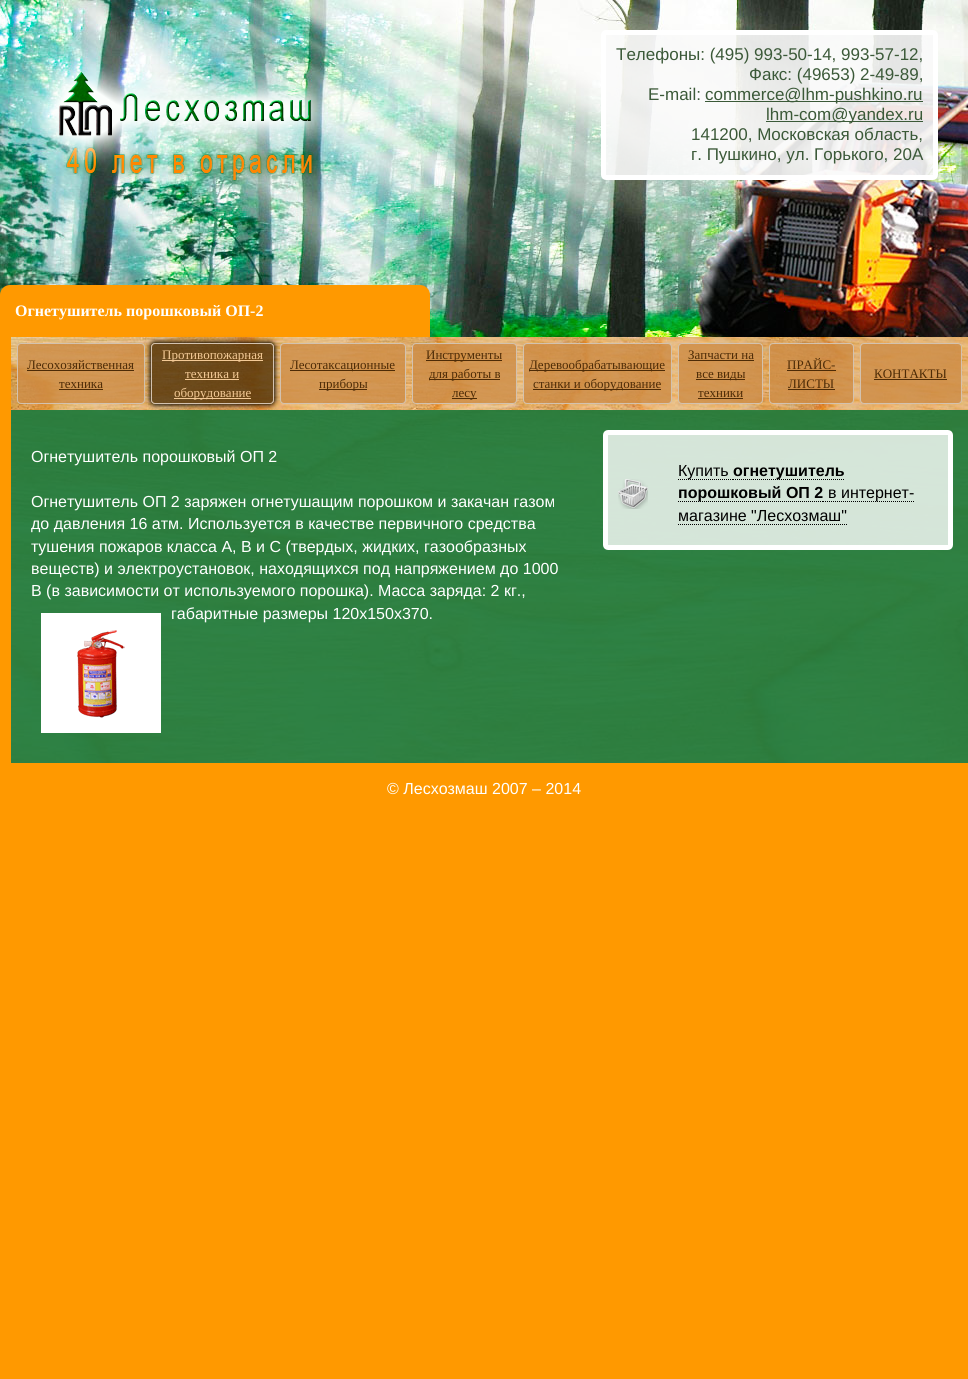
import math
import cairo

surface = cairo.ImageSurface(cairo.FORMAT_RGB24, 968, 1379)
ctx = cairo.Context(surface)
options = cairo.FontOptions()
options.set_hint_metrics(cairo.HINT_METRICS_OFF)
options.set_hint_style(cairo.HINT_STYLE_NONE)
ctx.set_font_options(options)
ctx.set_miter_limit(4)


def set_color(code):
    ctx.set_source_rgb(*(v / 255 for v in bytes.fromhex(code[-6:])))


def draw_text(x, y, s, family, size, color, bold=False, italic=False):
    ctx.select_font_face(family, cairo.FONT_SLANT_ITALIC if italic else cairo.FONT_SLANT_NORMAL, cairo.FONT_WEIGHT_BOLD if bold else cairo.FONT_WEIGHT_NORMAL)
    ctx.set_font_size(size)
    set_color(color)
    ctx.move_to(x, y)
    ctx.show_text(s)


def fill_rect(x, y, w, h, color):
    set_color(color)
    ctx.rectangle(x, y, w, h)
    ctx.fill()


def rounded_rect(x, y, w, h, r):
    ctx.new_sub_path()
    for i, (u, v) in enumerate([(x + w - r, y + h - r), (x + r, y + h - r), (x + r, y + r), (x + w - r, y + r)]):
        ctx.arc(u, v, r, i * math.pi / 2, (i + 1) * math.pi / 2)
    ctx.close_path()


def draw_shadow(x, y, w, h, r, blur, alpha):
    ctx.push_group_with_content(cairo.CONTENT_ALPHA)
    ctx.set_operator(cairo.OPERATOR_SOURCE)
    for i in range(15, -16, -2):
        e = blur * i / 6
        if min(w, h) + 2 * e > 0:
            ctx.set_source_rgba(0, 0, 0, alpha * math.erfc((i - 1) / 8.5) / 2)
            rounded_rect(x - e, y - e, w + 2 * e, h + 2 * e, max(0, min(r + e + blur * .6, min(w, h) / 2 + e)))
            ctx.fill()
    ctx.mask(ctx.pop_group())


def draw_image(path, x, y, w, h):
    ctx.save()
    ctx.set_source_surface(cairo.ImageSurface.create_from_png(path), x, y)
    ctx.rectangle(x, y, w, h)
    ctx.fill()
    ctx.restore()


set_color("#ff9900")
ctx.paint()
draw_image("assets/img2.png", 0, 0, 968, 337)
draw_image("assets/img1.png", 26, 45, 308, 141)
ctx.set_source_rgba(0.98, 0.98, 0.98, 0.9)
rounded_rect(603.5, 32.5, 332, 145, 2.5)
ctx.fill_preserve()
set_color("#ffffff")
ctx.set_line_width(5)
ctx.stroke()
draw_text(616, 60, "Телефоны: (495) 993-50-14, 993-57-12,", "Liberation Sans", 17, "#3b5938")
draw_text(749, 80, "Факс: (49653) 2-49-89,", "Liberation Sans", 17, "#3b5938")
draw_text(648, 100, "E-mail:", "Liberation Sans", 17, "#3b5938")
fill_rect(705, 101, 218, 1, "#3b5938")
draw_text(705, 100, "commerce@lhm-pushkino.ru", "Liberation Sans", 17, "#3b5938")
fill_rect(766, 121, 157, 1, "#3b5938")
draw_text(766, 120, "lhm-com@yandex.ru", "Liberation Sans", 17, "#3b5938")
draw_text(691, 140, "141200, Московская область,", "Liberation Sans", 17, "#3b5938")
draw_text(691, 160, "г. Пушкино, ул. Горького, 20А", "Liberation Sans", 17, "#3b5938")
set_color("#ff9900")
ctx.new_path()
ctx.move_to(10, 285)
ctx.line_to(420, 285)
ctx.curve_to(425.5, 285, 430, 289.5, 430, 295)
ctx.line_to(430, 337)
ctx.line_to(0, 337)
ctx.line_to(0, 295)
ctx.curve_to(0, 289.5, 4.5, 285, 10, 285)
ctx.close_path()
ctx.fill()
draw_text(15, 316, "Огнетушитель порошковый ОП-2", "Liberation Serif", 16, "#ffffff", bold=True)
draw_image("assets/img3.png", 11, 337, 957, 73)
ctx.set_source_rgba(0.804, 0.549, 0.275, 0.8)
rounded_rect(17.5, 343.5, 127, 60, 3.5)
ctx.fill_preserve()
set_color("#d3c2af")
ctx.set_line_width(1)
ctx.stroke()
draw_text(27, 369, "Лесохозяйственная", "Liberation Serif", 13, "#4d2b06")
fill_rect(27, 370, 107, 1, "#4d2b06")
draw_text(59, 388, "техника", "Liberation Serif", 13, "#4d2b06")
fill_rect(59, 389, 44, 1, "#4d2b06")
draw_image("assets/img4.png", 11, 410, 957, 353)
ctx.set_source_rgba(0.106, 0.482, 0.239, 0.9)
ctx.rectangle(11, 410, 577, 353)
ctx.fill()
ctx.save()
ctx.set_fill_rule(cairo.FILL_RULE_EVEN_ODD)
ctx.new_path()
ctx.move_to(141, 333)
ctx.line_to(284, 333)
ctx.line_to(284, 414)
ctx.line_to(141, 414)
ctx.close_path()
ctx.move_to(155, 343)
ctx.line_to(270, 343)
ctx.curve_to(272, 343, 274, 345, 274, 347)
ctx.line_to(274, 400)
ctx.curve_to(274, 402, 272, 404, 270, 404)
ctx.line_to(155, 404)
ctx.curve_to(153, 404, 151, 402, 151, 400)
ctx.line_to(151, 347)
ctx.curve_to(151, 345, 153, 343, 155, 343)
ctx.close_path()
ctx.clip()
set_color("#000000")
draw_shadow(150, 342, 125, 63, 5, 2.5, 1)
ctx.restore()
ctx.set_source_rgba(0.314, 0.196, 0.039, 0.8)
rounded_rect(151.5, 343.5, 122, 60, 3.5)
ctx.fill_preserve()
set_color("#d3c2af")
ctx.stroke()
fill_rect(162, 360, 101, 1, "#f4ca96")
draw_text(162, 359, "Противопожарная", "Liberation Serif", 13, "#f4ca96")
draw_text(185, 378, "техника и", "Liberation Serif", 13, "#f4ca96")
fill_rect(185, 379, 54, 1, "#f4ca96")
fill_rect(174, 398, 77, 1, "#f4ca96")
draw_text(174, 397, "оборудование", "Liberation Serif", 13, "#f4ca96")
ctx.set_source_rgba(0.804, 0.549, 0.275, 0.8)
rounded_rect(280.5, 343.5, 125, 60, 3.5)
ctx.fill_preserve()
set_color("#d3c2af")
ctx.stroke()
fill_rect(290, 370, 105, 1, "#4d2b06")
draw_text(290, 369, "Лесотаксационные", "Liberation Serif", 13, "#4d2b06")
fill_rect(319, 389, 48, 1, "#4d2b06")
draw_text(319, 388, "приборы", "Liberation Serif", 13, "#4d2b06")
ctx.set_source_rgba(0.804, 0.549, 0.275, 0.8)
rounded_rect(412.5, 343.5, 104, 60, 3.5)
ctx.fill_preserve()
set_color("#d3c2af")
ctx.stroke()
fill_rect(426, 360, 76, 1, "#4d2b06")
draw_text(426, 359, "Инструменты", "Liberation Serif", 13, "#4d2b06")
fill_rect(429, 379, 71, 1, "#4d2b06")
draw_text(429, 378, "для работы в", "Liberation Serif", 13, "#4d2b06")
fill_rect(452, 398, 25, 1, "#4d2b06")
draw_text(452, 397, "лесу", "Liberation Serif", 13, "#4d2b06")
ctx.set_source_rgba(0.804, 0.549, 0.275, 0.8)
rounded_rect(523.5, 343.5, 148, 60, 3.5)
ctx.fill_preserve()
set_color("#d3c2af")
ctx.stroke()
fill_rect(529, 370, 136, 1, "#4d2b06")
draw_text(529, 369, "Деревообрабатывающие", "Liberation Serif", 13, "#4d2b06")
fill_rect(533, 389, 128, 1, "#4d2b06")
draw_text(533, 388, "станки и оборудование", "Liberation Serif", 13, "#4d2b06")
ctx.set_source_rgba(0.804, 0.549, 0.275, 0.8)
rounded_rect(678.5, 343.5, 84, 60, 3.5)
ctx.fill_preserve()
set_color("#d3c2af")
ctx.stroke()
draw_text(688, 359, "Запчасти на", "Liberation Serif", 13, "#4d2b06")
fill_rect(688, 360, 66, 1, "#4d2b06")
fill_rect(696, 379, 49, 1, "#4d2b06")
draw_text(696, 378, "все виды", "Liberation Serif", 13, "#4d2b06")
draw_text(698, 397, "техники", "Liberation Serif", 13, "#4d2b06")
fill_rect(698, 398, 45, 1, "#4d2b06")
ctx.set_source_rgba(0.804, 0.549, 0.275, 0.8)
rounded_rect(769.5, 343.5, 84, 60, 3.5)
ctx.fill_preserve()
set_color("#d3c2af")
ctx.stroke()
draw_text(787, 369, "ПРАЙС-", "Liberation Serif", 13, "#4d2b06")
fill_rect(787, 370, 49, 1, "#4d2b06")
draw_text(788, 388, "ЛИСТЫ", "Liberation Serif", 13, "#4d2b06")
fill_rect(788, 389, 47, 1, "#4d2b06")
ctx.set_source_rgba(0.804, 0.549, 0.275, 0.8)
rounded_rect(860.5, 343.5, 101, 60, 3.5)
ctx.fill_preserve()
set_color("#d3c2af")
ctx.stroke()
draw_text(874, 378, "КОНТАКТЫ", "Liberation Serif", 13, "#4d2b06")
fill_rect(874, 379, 73, 1, "#4d2b06")
draw_text(31, 462, "Огнетушитель порошковый ОП 2", "Liberation Sans", 16, "#ffffff")
draw_text(31, 507, "Огнетушитель ОП 2 заряжен огнетушащим порошком и закачан газом", "Liberation Sans", 16, "#ffffff")
draw_text(31, 529, "до давления 16 атм. Используется в качестве первичного средства", "Liberation Sans", 16, "#ffffff")
draw_text(31, 552, "тушения пожаров класса А, В и С (твердых, жидких, газообразных", "Liberation Sans", 16, "#ffffff")
draw_text(31, 574, "веществ) и электроустановок, находящихся под напряжением до 1000", "Liberation Sans", 16, "#ffffff")
draw_text(31, 596, "В (в зависимости от используемого порошка). Масса заряда: 2 кг.,", "Liberation Sans", 16, "#ffffff")
draw_image("assets/img5.png", 41, 613, 120, 120)
draw_text(171, 619, "габаритные размеры 120х150х370.", "Liberation Sans", 16, "#ffffff")
ctx.set_source_rgba(0.106, 0.482, 0.239, 0.9)
ctx.rectangle(588, 410, 380, 353)
ctx.fill()
ctx.set_source_rgba(1, 1, 1, 0.8)
rounded_rect(605.5, 432.5, 345, 115, 2.5)
ctx.fill_preserve()
set_color("#ffffff")
ctx.set_line_width(5)
ctx.stroke()
draw_image("assets/img6.png", 618, 479, 30, 30)
ctx.new_path()
ctx.move_to(678, 479.5)
ctx.line_to(733, 479.5)
set_color("#000000")
ctx.set_line_width(1)
ctx.set_dash([1, 1])
ctx.stroke()
draw_text(678, 476, "Купить", "Liberation Sans", 16, "#000000")
ctx.new_path()
ctx.move_to(733, 479.5)
ctx.line_to(845, 479.5)
ctx.stroke()
draw_text(733, 476, "огнетушитель", "Liberation Sans", 16, "#000000", bold=True)
ctx.new_path()
ctx.move_to(678, 501.5)
ctx.line_to(823, 501.5)
ctx.stroke()
draw_text(678, 498, "порошковый ОП 2", "Liberation Sans", 16, "#000000", bold=True)
ctx.new_path()
ctx.move_to(823, 501.5)
ctx.line_to(914, 501.5)
ctx.stroke()
draw_text(828, 498, "в интернет-", "Liberation Sans", 16, "#000000")
draw_text(678, 521, "магазине \"Лесхозмаш\"", "Liberation Sans", 16, "#000000")
ctx.new_path()
ctx.move_to(678, 524.5)
ctx.line_to(847, 524.5)
ctx.stroke()
draw_text(387, 794, "© Лесхозмаш 2007 – 2014", "Liberation Sans", 16, "#ffffff")
surface.write_to_png("output.png")
